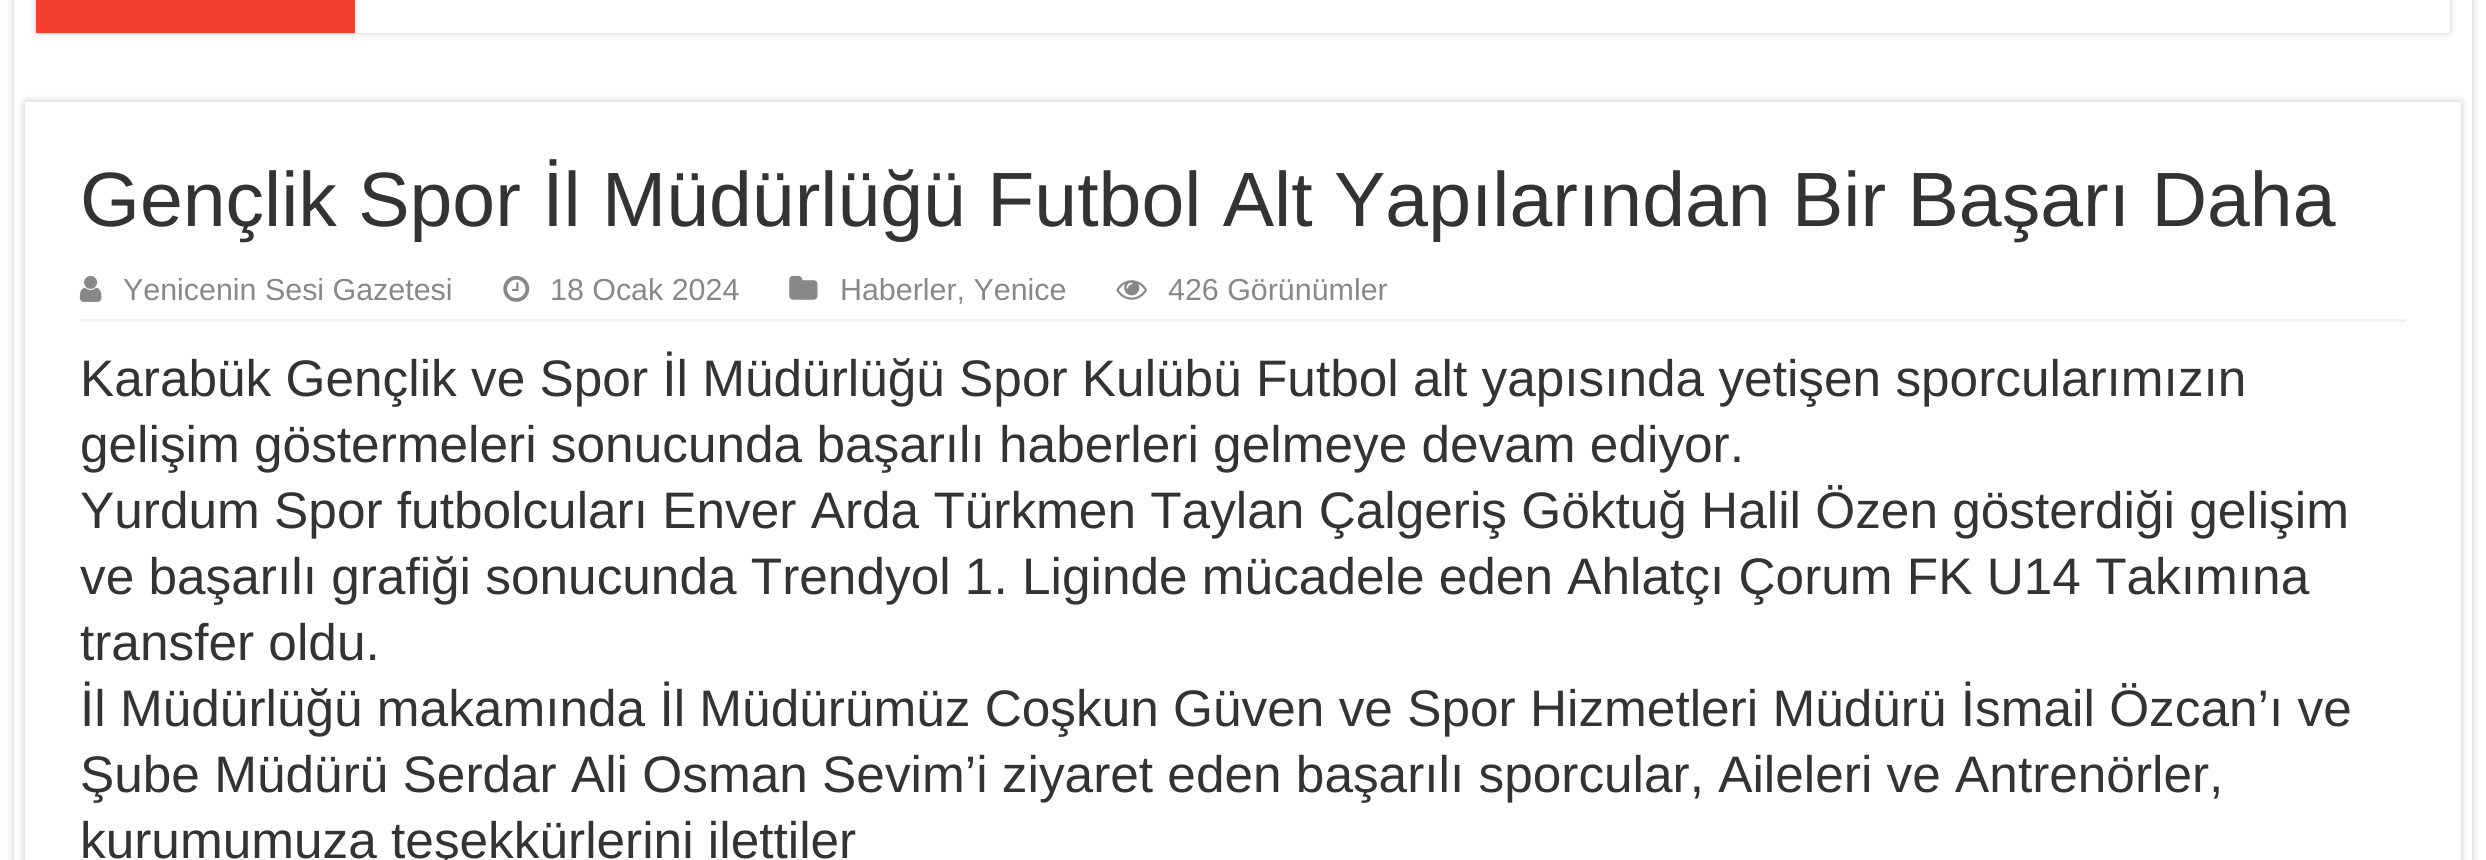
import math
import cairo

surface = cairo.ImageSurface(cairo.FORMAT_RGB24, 2486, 860)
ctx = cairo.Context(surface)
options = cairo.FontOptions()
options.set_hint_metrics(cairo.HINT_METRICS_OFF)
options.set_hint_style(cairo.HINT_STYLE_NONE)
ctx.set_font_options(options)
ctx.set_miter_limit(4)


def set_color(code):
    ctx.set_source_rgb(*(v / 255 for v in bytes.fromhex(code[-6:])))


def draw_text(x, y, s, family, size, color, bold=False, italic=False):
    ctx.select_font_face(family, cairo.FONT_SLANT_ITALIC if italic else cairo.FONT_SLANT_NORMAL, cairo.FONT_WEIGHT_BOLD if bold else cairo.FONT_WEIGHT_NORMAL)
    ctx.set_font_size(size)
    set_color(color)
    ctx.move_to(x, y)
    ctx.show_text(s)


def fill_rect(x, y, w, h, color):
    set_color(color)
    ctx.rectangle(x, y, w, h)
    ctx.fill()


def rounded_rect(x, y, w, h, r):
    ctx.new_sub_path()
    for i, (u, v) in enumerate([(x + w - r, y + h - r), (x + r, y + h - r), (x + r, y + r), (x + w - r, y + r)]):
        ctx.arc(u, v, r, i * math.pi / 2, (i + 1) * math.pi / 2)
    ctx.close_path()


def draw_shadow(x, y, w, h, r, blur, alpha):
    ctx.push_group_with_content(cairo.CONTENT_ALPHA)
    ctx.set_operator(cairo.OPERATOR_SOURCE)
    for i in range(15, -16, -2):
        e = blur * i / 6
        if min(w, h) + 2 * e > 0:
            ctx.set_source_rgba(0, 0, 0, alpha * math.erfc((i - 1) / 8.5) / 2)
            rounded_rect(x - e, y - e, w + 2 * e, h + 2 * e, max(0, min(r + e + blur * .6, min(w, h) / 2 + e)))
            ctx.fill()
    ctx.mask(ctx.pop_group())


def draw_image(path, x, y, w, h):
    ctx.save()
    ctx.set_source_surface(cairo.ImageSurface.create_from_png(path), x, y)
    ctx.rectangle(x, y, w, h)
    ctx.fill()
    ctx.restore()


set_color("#ffffff")
ctx.paint()
ctx.save()
ctx.set_fill_rule(cairo.FILL_RULE_EVEN_ODD)
ctx.new_path()
ctx.move_to(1, 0)
ctx.line_to(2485, 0)
ctx.line_to(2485, 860)
ctx.line_to(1, 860)
ctx.close_path()
ctx.move_to(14, -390)
ctx.line_to(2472, -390)
ctx.line_to(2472, 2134)
ctx.line_to(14, 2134)
ctx.close_path()
ctx.clip()
set_color("#cacaca")
draw_shadow(14, -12, 2458, 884, 0, 4, 1)
ctx.restore()
ctx.save()
ctx.set_fill_rule(cairo.FILL_RULE_EVEN_ODD)
ctx.new_path()
ctx.move_to(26, 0)
ctx.line_to(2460, 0)
ctx.line_to(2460, 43)
ctx.line_to(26, 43)
ctx.close_path()
ctx.move_to(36, -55)
ctx.line_to(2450, -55)
ctx.line_to(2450, 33)
ctx.line_to(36, 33)
ctx.close_path()
ctx.clip()
set_color("#cacaca")
draw_shadow(36, -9, 2414, 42, 0, 3, 1)
ctx.restore()
fill_rect(36, 0, 319, 33, "#f43d2a")
ctx.save()
ctx.set_fill_rule(cairo.FILL_RULE_EVEN_ODD)
ctx.new_path()
ctx.move_to(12, 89)
ctx.line_to(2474, 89)
ctx.line_to(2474, 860)
ctx.line_to(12, 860)
ctx.close_path()
ctx.move_to(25, 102)
ctx.line_to(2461, 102)
ctx.line_to(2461, 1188)
ctx.line_to(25, 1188)
ctx.close_path()
ctx.clip()
set_color("#cacaca")
draw_shadow(25, 102, 2436, 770, 0, 4, 1)
ctx.restore()
draw_text(80, 226, "Gençlik Spor İl Müdürlüğü Futbol Alt Yapılarından Bir Başarı Daha", "Liberation Sans", 77, "#333333")
fill_rect(80, 319, 2326, 3, "#f2f2f2")
draw_image("assets/img1.png", 79, 275, 23, 27)
draw_text(123, 300, "Yenicenin Sesi Gazetesi", "Liberation Sans", 30.4, "#888888")
draw_image("assets/img2.png", 503, 275, 27, 27)
draw_text(550, 300, "18 Ocak 2024", "Liberation Sans", 30.4, "#888888")
draw_image("assets/img3.png", 789, 275, 29, 25)
draw_text(840, 300, "Haberler, Yenice", "Liberation Sans", 30.4, "#888888")
draw_image("assets/img4.png", 1116, 280, 31, 20)
draw_text(1168, 300, "426 Görünümler", "Liberation Sans", 30.4, "#888888")
draw_text(80, 396, "Karabük Gençlik ve Spor İl Müdürlüğü Spor Kulübü Futbol alt yapısında yetişen sporcularımızın", "Liberation Sans", 51.35, "#333333")
draw_text(80, 462, "gelişim göstermeleri sonucunda başarılı haberleri gelmeye devam ediyor.", "Liberation Sans", 51.35, "#333333")
draw_text(80, 528, "Yurdum Spor futbolcuları Enver Arda Türkmen Taylan Çalgeriş Göktuğ Halil Özen gösterdiği gelişim", "Liberation Sans", 51.35, "#333333")
draw_text(80, 594, "ve başarılı grafiği sonucunda Trendyol 1. Liginde mücadele eden Ahlatçı Çorum FK U14 Takımına", "Liberation Sans", 51.35, "#333333")
draw_text(80, 660, "transfer oldu.", "Liberation Sans", 51.35, "#333333")
draw_text(80, 726, "İl Müdürlüğü makamında İl Müdürümüz Coşkun Güven ve Spor Hizmetleri Müdürü İsmail Özcan’ı ve", "Liberation Sans", 51.35, "#333333")
draw_text(80, 792, "Şube Müdürü Serdar Ali Osman Sevim’i ziyaret eden başarılı sporcular, Aileleri ve Antrenörler,", "Liberation Sans", 51.35, "#333333")
draw_text(80, 858, "kurumumuza teşekkürlerini ilettiler", "Liberation Sans", 51.35, "#333333")
surface.write_to_png("output.png")
